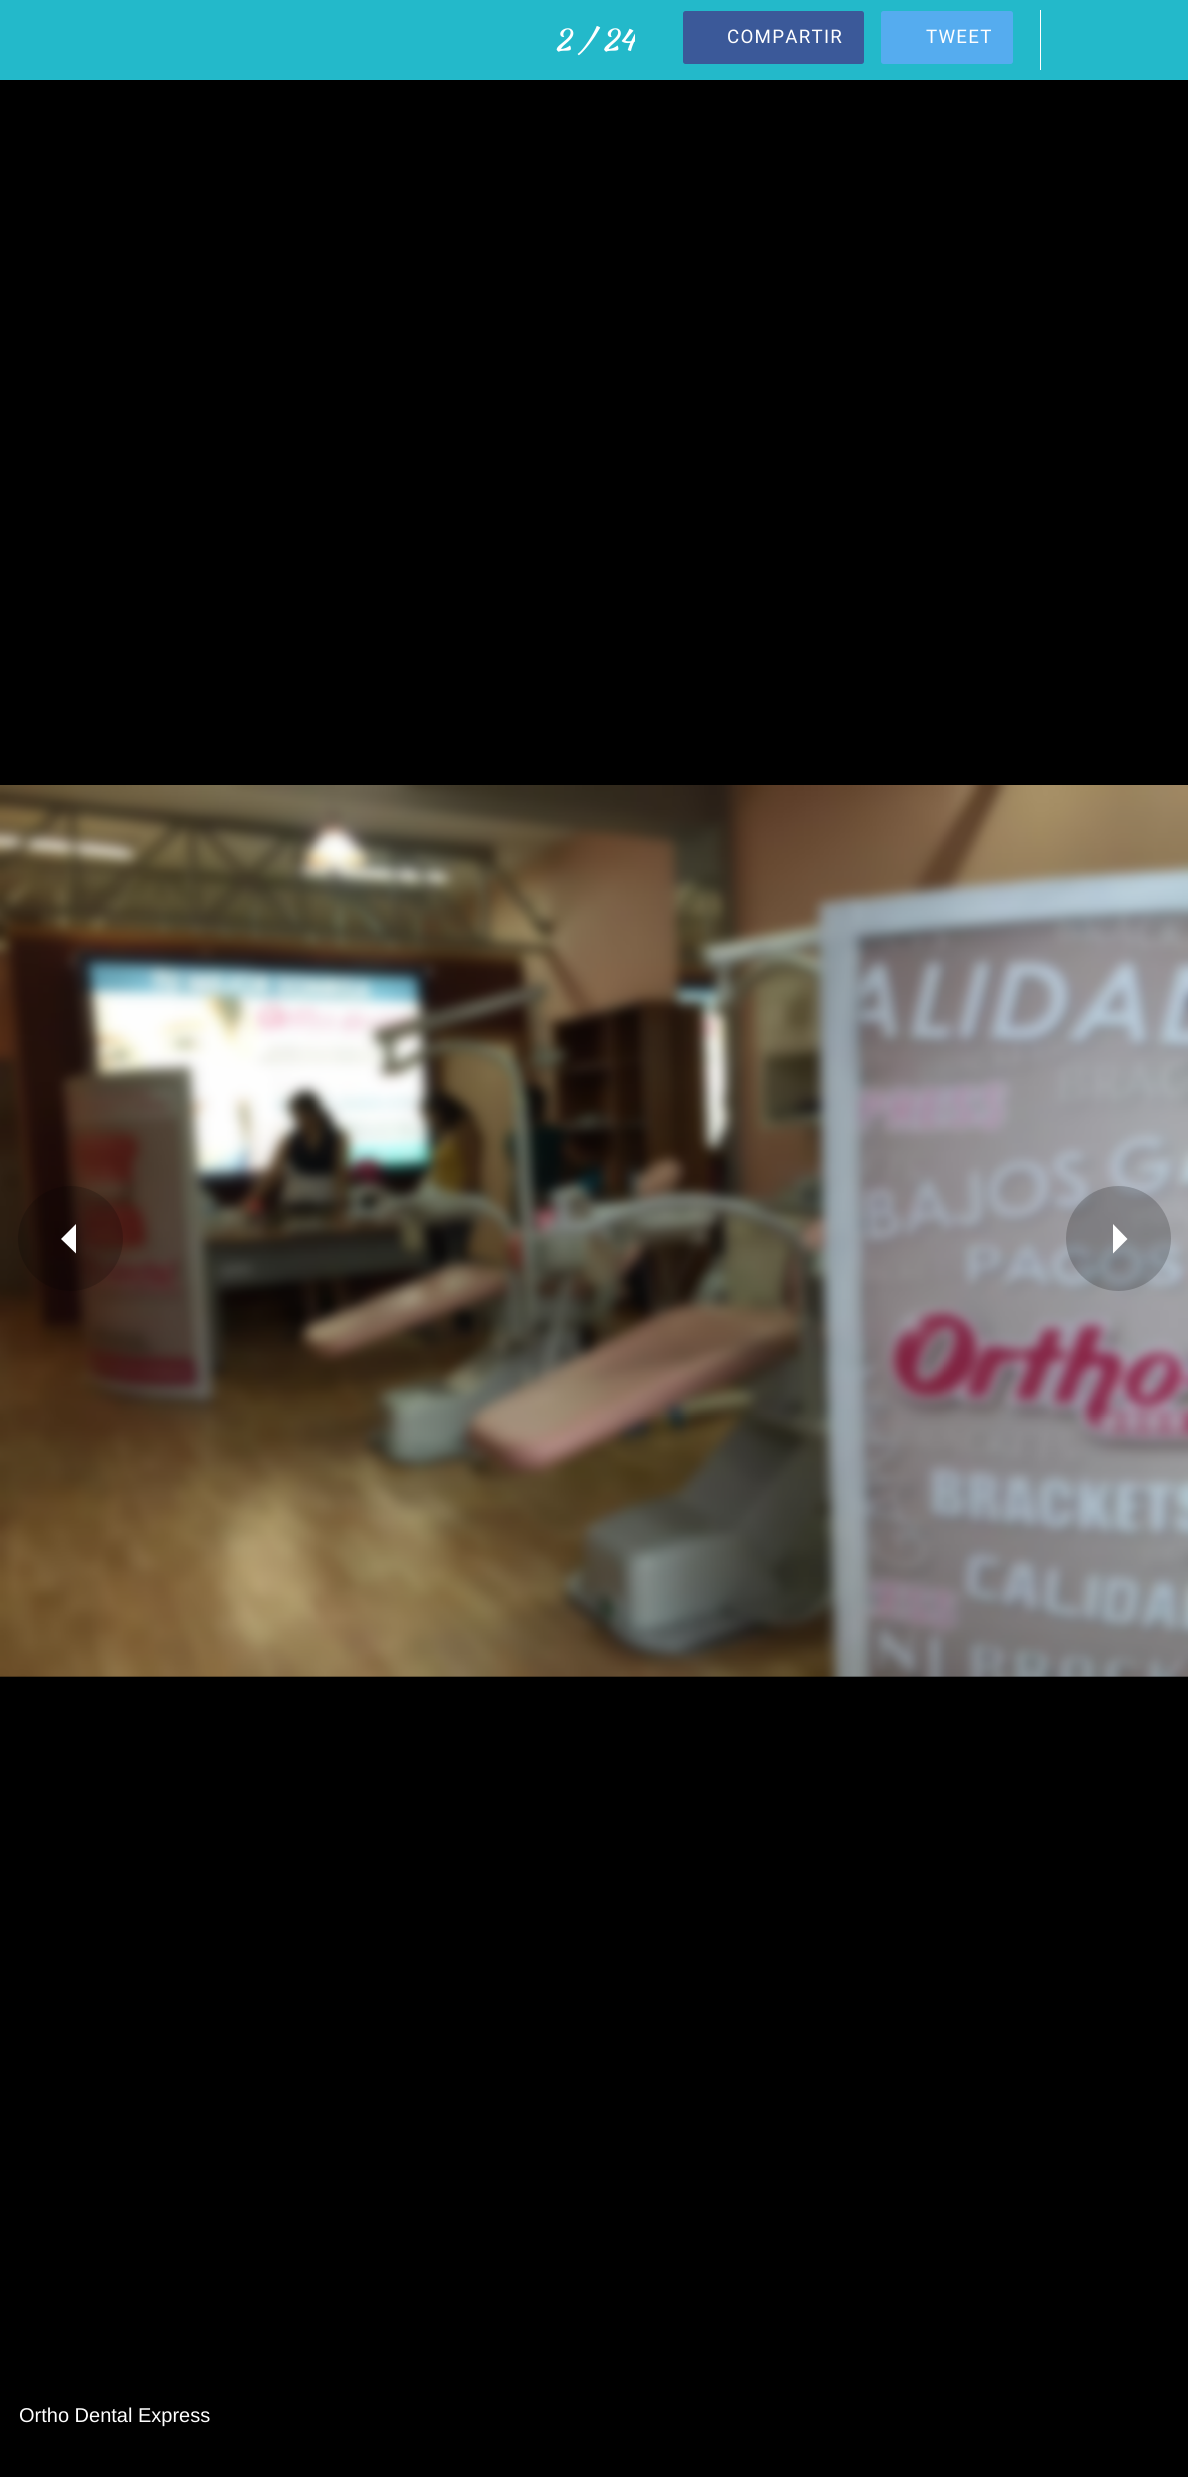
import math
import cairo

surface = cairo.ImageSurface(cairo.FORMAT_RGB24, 1188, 2477)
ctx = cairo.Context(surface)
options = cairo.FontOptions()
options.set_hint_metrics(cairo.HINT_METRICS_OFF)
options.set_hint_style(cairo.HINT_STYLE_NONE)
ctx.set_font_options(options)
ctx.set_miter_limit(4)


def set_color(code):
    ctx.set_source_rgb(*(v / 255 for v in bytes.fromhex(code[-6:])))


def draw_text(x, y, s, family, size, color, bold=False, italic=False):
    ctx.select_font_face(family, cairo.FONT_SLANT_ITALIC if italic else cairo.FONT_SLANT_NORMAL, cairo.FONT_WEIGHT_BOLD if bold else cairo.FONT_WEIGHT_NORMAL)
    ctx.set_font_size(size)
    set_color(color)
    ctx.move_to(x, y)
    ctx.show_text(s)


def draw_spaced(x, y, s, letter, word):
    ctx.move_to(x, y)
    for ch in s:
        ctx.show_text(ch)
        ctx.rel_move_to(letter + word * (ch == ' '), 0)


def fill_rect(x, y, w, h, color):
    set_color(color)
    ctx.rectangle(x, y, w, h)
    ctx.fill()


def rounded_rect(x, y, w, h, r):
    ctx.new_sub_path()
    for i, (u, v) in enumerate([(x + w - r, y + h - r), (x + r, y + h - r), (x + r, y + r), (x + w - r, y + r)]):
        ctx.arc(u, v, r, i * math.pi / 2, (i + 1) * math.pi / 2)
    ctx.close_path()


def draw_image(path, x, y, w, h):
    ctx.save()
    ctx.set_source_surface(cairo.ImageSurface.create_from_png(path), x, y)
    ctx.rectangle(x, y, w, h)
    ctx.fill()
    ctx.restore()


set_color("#000000")
ctx.paint()
fill_rect(0, 0, 1188, 80, "#23b9ca")
ctx.save()
ctx.rectangle(554, 18, 81, 45)
ctx.clip()
draw_text(554, 50, "2 / 24", "Kaushan Script", 30, "#ffffff")
ctx.restore()
set_color("#3b5999")
rounded_rect(683, 11, 181, 53, 2.5)
ctx.fill()
ctx.select_font_face("Roboto")
ctx.set_font_size(18.75)
set_color("#ffffff")
draw_spaced(727, 43, "COMPARTIR", 1.25, 0)
fill_rect(1040, 10, 1, 60, "#ffffff")
set_color("#55acef")
rounded_rect(881, 11, 132, 53, 2.5)
ctx.fill()
set_color("#ffffff")
draw_spaced(926, 43, "TWEET", 1.25, 0)
draw_image("assets/img1.png", 0, 785, 1188, 892)
ctx.set_source_rgba(0, 0, 0, 0.2)
ctx.arc(70.5, 1238.5, 52.5, 0, 2 * math.pi)
ctx.fill()
set_color("#ffffff")
ctx.new_path()
ctx.move_to(76, 1224)
ctx.line_to(76, 1253.5)
ctx.line_to(61, 1239)
ctx.close_path()
ctx.fill()
ctx.set_source_rgba(0, 0, 0, 0.2)
ctx.arc(1118.5, 1238.5, 52.5, 0, 2 * math.pi)
ctx.fill()
set_color("#ffffff")
ctx.new_path()
ctx.move_to(1113, 1253.5)
ctx.line_to(1113, 1224)
ctx.line_to(1127.5, 1239)
ctx.close_path()
ctx.fill()
draw_text(19, 2422, "Ortho Dental Express", "Liberation Sans", 20, "#ffffff")
surface.write_to_png("output.png")
